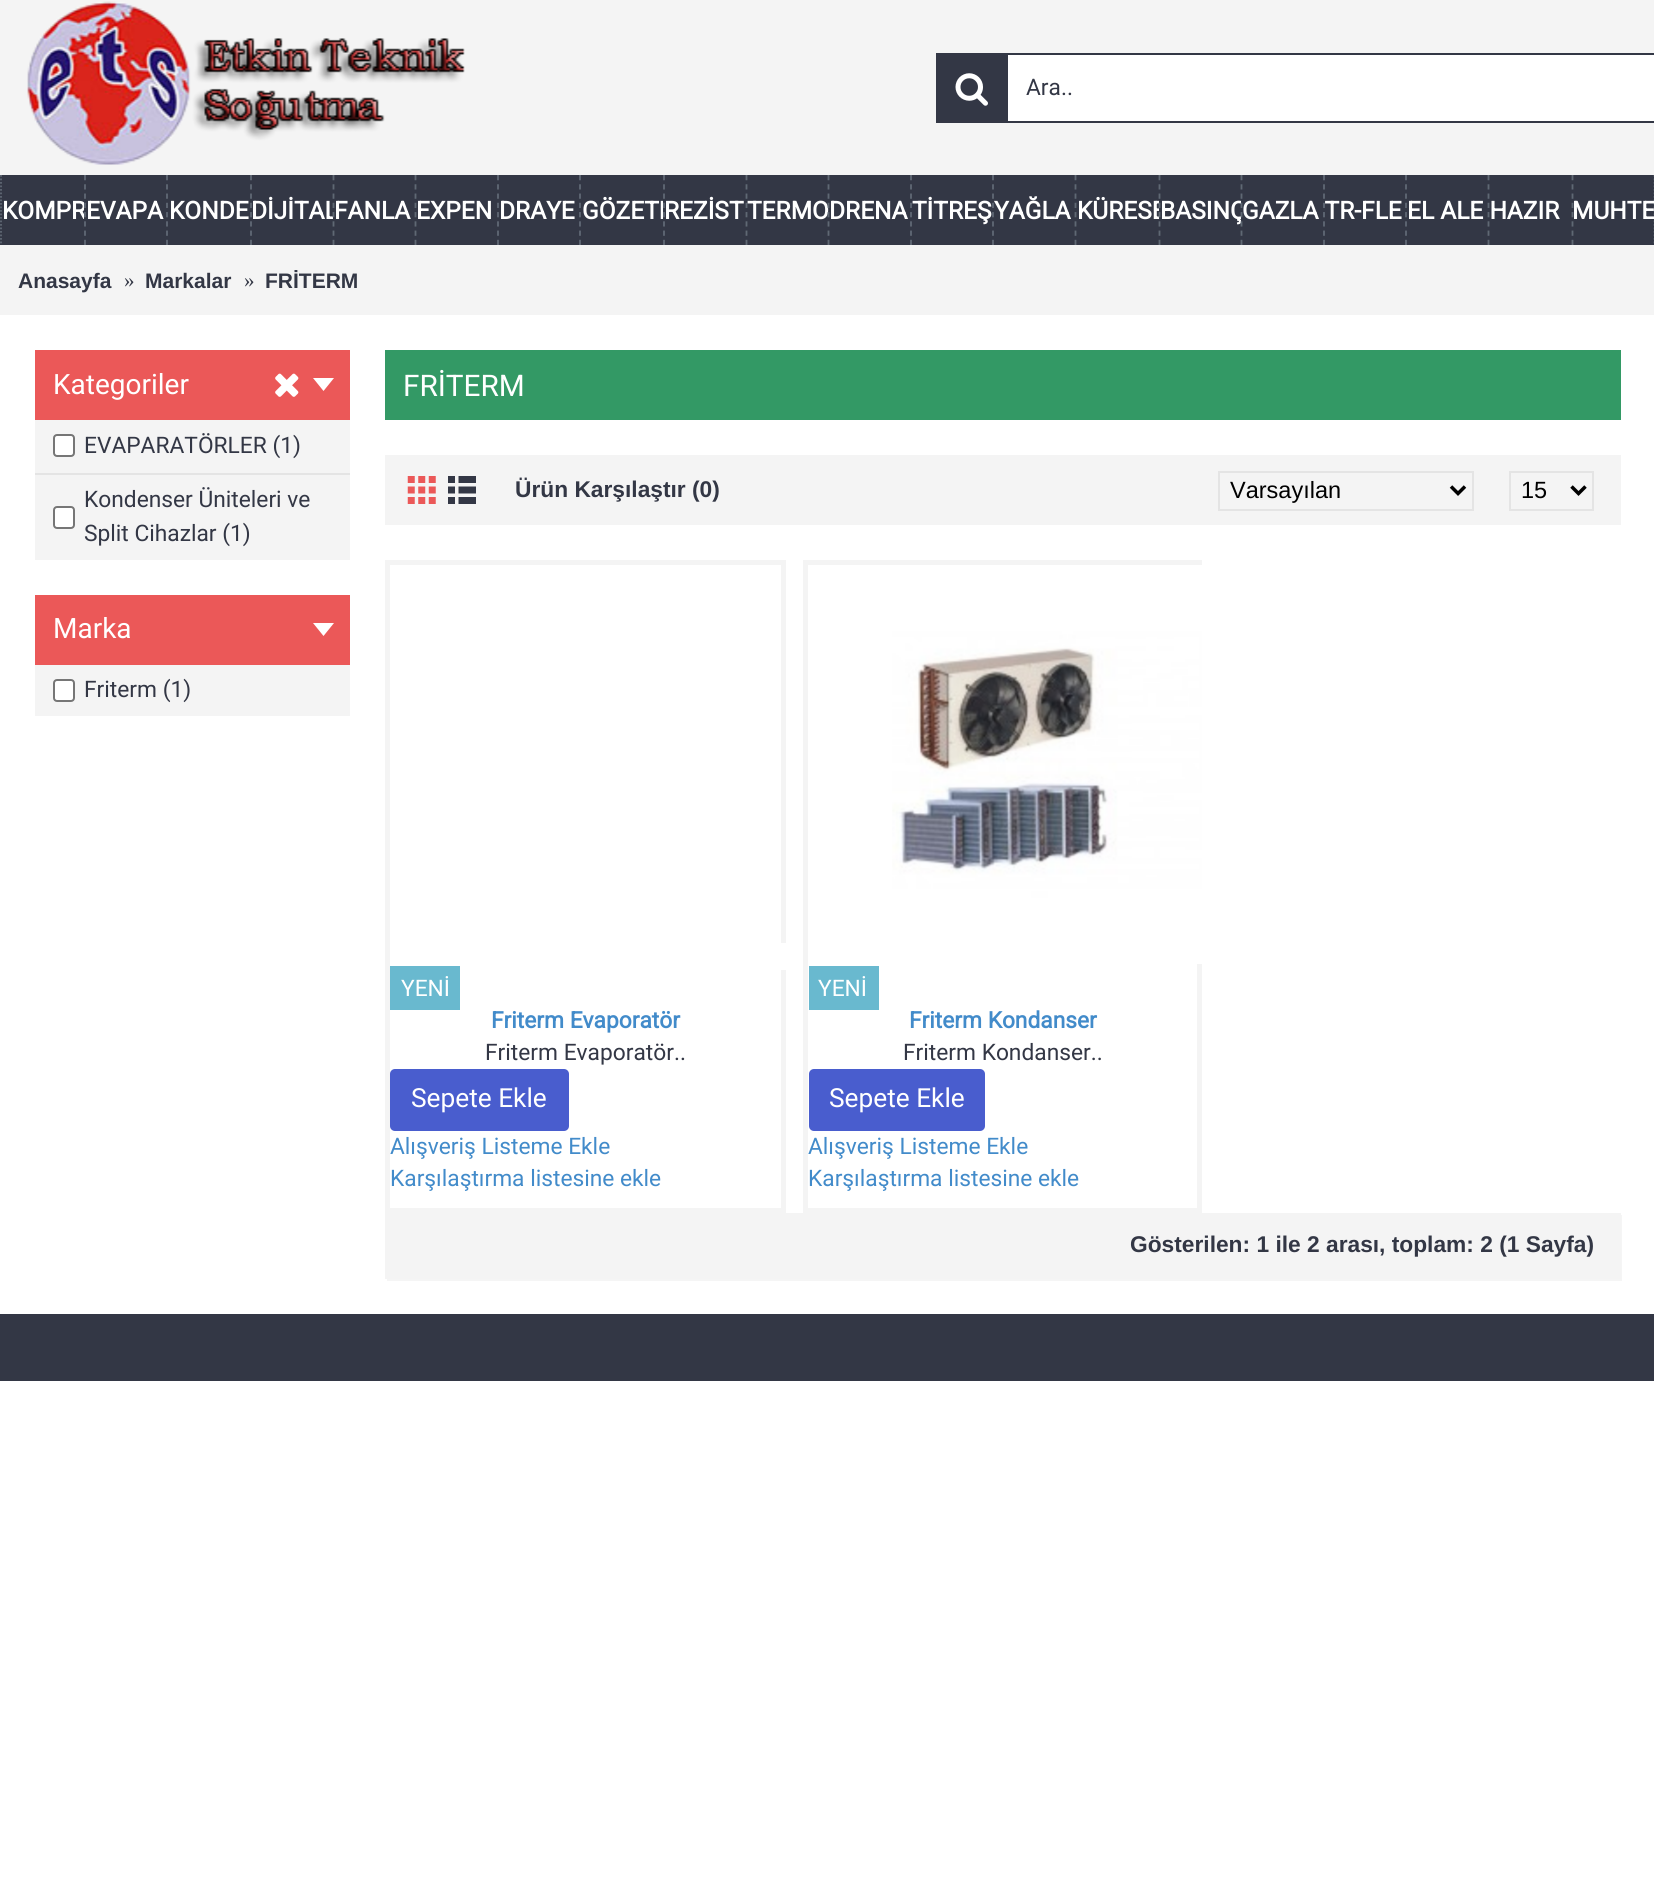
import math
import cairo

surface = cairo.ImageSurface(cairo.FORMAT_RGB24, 1654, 1904)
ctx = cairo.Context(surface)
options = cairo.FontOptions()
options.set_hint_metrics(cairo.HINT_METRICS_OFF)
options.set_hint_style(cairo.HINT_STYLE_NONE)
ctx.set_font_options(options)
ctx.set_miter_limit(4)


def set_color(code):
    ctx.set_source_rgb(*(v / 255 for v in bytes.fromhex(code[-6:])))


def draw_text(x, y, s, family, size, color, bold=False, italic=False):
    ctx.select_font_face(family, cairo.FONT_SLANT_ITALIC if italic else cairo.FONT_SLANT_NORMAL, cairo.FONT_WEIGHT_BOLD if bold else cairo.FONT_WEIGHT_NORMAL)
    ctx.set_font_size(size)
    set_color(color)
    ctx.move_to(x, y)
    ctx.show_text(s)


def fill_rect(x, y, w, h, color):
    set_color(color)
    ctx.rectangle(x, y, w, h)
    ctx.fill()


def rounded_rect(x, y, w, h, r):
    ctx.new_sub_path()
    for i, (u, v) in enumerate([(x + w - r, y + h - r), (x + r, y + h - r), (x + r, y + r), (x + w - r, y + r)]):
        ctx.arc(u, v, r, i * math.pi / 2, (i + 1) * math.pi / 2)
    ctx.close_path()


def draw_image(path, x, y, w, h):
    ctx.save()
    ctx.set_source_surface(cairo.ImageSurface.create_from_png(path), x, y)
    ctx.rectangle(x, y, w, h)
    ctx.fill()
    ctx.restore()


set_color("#ffffff")
ctx.paint()
fill_rect(0, 0, 1654, 175, "#f4f4f4")
draw_image("assets/img1.png", 27, 1, 438, 164)
fill_rect(1008, 55, 646, 66, "#ffffff")
ctx.rectangle(937, 54, 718, 68)
set_color("#333745")
ctx.stroke()
fill_rect(938, 55, 70, 66, "#333745")
draw_image("assets/img2.png", 955, 73, 33, 33)
draw_text(1026, 95, "Ara..", "Roboto", 22.75, "#333745")
fill_rect(0, 175, 1654, 70, "#333745")
ctx.new_path()
ctx.move_to(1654.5, 175)
ctx.line_to(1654.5, 245)
set_color("#5f6874")
ctx.set_line_width(1.8)
ctx.set_dash([1.75, 1.75])
ctx.stroke()
ctx.new_path()
ctx.move_to(1, 175)
ctx.line_to(1, 245)
ctx.stroke()
ctx.save()
ctx.rectangle(2, 175, 82, 70)
ctx.clip()
draw_text(2, 219, "KOMPR", "Roboto", 24.5, "#ffffff", bold=True)
ctx.restore()
ctx.new_path()
ctx.move_to(85, 175)
ctx.line_to(85, 245)
ctx.set_dash([5.25, 4.01])
ctx.stroke()
draw_text(86, 219, "EVAPA", "Roboto", 24.5, "#ffffff", bold=True)
ctx.new_path()
ctx.move_to(167, 175)
ctx.line_to(167, 245)
set_color("#5f6874")
ctx.stroke()
draw_text(169, 219, "KONDE", "Roboto", 24.5, "#ffffff", bold=True)
ctx.new_path()
ctx.move_to(251, 175)
ctx.line_to(251, 245)
set_color("#5f6874")
ctx.stroke()
ctx.save()
ctx.rectangle(252, 175, 81, 70)
ctx.clip()
draw_text(251, 219, "DİJİTAL", "Roboto", 24.5, "#ffffff", bold=True)
ctx.restore()
ctx.new_path()
ctx.move_to(333.5, 175)
ctx.line_to(333.5, 245)
ctx.stroke()
draw_text(334, 219, "FANLA", "Roboto", 24.5, "#ffffff", bold=True)
ctx.new_path()
ctx.move_to(415.5, 175)
ctx.line_to(415.5, 245)
set_color("#5f6874")
ctx.stroke()
draw_text(416, 219, "EXPEN", "Roboto", 24.5, "#ffffff", bold=True)
ctx.new_path()
ctx.move_to(498, 175)
ctx.line_to(498, 245)
set_color("#5f6874")
ctx.stroke()
draw_text(499, 219, "DRAYE", "Roboto", 24.5, "#ffffff", bold=True)
ctx.new_path()
ctx.move_to(580, 175)
ctx.line_to(580, 245)
set_color("#5f6874")
ctx.stroke()
ctx.save()
ctx.rectangle(581, 175, 82, 70)
ctx.clip()
draw_text(582, 219, "GÖZETL", "Roboto", 24.5, "#ffffff", bold=True)
ctx.restore()
ctx.new_path()
ctx.move_to(664, 175)
ctx.line_to(664, 245)
ctx.stroke()
draw_text(664, 219, "REZİST", "Roboto", 24.5, "#ffffff", bold=True)
ctx.new_path()
ctx.move_to(746.5, 175)
ctx.line_to(746.5, 245)
set_color("#5f6874")
ctx.stroke()
draw_text(747, 219, "TERMO", "Roboto", 24.5, "#ffffff", bold=True)
ctx.new_path()
ctx.move_to(828.5, 175)
ctx.line_to(828.5, 245)
set_color("#5f6874")
ctx.stroke()
draw_text(829, 219, "DRENA", "Roboto", 24.5, "#ffffff", bold=True)
ctx.new_path()
ctx.move_to(911, 175)
ctx.line_to(911, 245)
set_color("#5f6874")
ctx.stroke()
draw_text(912, 219, "TİTREŞ", "Roboto", 24.5, "#ffffff", bold=True)
ctx.new_path()
ctx.move_to(993, 175)
ctx.line_to(993, 245)
set_color("#5f6874")
ctx.stroke()
draw_text(994, 219, "YAĞLA", "Roboto", 24.5, "#ffffff", bold=True)
ctx.new_path()
ctx.move_to(1075.5, 175)
ctx.line_to(1075.5, 245)
set_color("#5f6874")
ctx.stroke()
ctx.save()
ctx.rectangle(1076, 175, 83, 70)
ctx.clip()
draw_text(1077, 219, "KÜRESE", "Roboto", 24.5, "#ffffff", bold=True)
ctx.restore()
ctx.new_path()
ctx.move_to(1159.5, 175)
ctx.line_to(1159.5, 245)
ctx.stroke()
ctx.save()
ctx.rectangle(1160, 175, 81, 70)
ctx.clip()
draw_text(1160, 219, "BASINÇ", "Roboto", 24.5, "#ffffff", bold=True)
ctx.restore()
draw_text(1242, 219, "GAZLA TR-FLE", "Roboto", 24.5, "#ffffff", bold=True)
ctx.new_path()
ctx.move_to(1324, 175)
ctx.line_to(1324, 245)
set_color("#5f6874")
ctx.stroke()
draw_text(1407, 219, "EL ALE HAZIR", "Roboto", 24.5, "#ffffff", bold=True)
ctx.new_path()
ctx.move_to(1488.5, 175)
ctx.line_to(1488.5, 245)
set_color("#5f6874")
ctx.stroke()
ctx.new_path()
ctx.move_to(1241.5, 175)
ctx.line_to(1241.5, 245)
ctx.stroke()
ctx.new_path()
ctx.move_to(1406, 175)
ctx.line_to(1406, 245)
ctx.stroke()
ctx.new_path()
ctx.move_to(1572.5, 175)
ctx.line_to(1572.5, 245)
ctx.stroke()
draw_text(1572, 219, "MUHTE", "Roboto", 24.5, "#ffffff", bold=True)
fill_rect(0, 245, 1654, 70, "#f4f4f4")
draw_text(18, 288, "Anasayfa", "Liberation Sans", 21, "#333745", bold=True)
draw_text(124, 287, "»", "Liberation Serif", 21, "#333745")
draw_text(145, 288, "Markalar", "Liberation Sans", 21, "#333745", bold=True)
draw_text(244, 287, "»", "Liberation Serif", 21, "#333745")
draw_text(265, 288, "FRİTERM", "Liberation Sans", 21, "#333745", bold=True)
fill_rect(35, 420, 315, 140, "#f4f4f4")
fill_rect(35, 350, 315, 70, "#eb5858")
draw_text(53, 394, "Kategoriler", "Roboto", 28, "#ffffff")
ctx.new_path()
ctx.move_to(334, 378)
ctx.line_to(313, 378)
ctx.line_to(323.5, 391)
ctx.close_path()
ctx.fill()
fill_rect(35, 473, 315, 2, "#e4e4e4")
set_color("#ffffff")
rounded_rect(54, 435, 20, 21, 3)
ctx.fill_preserve()
set_color("#767676")
ctx.set_line_width(2)
ctx.set_dash([])
ctx.stroke()
draw_text(84, 453, "EVAPARATÖRLER (1)", "Roboto", 22.75, "#333745")
set_color("#ffffff")
rounded_rect(54, 507, 20, 21, 3)
ctx.fill_preserve()
set_color("#767676")
ctx.stroke()
draw_text(84, 507, "Kondenser Üniteleri ve", "Roboto", 22.75, "#333745")
draw_text(84, 541, "Split Cihazlar (1)", "Roboto", 22.75, "#333745")
draw_image("assets/img3.png", 275, 373, 24, 24)
fill_rect(35, 665, 315, 51, "#f4f4f4")
fill_rect(35, 595, 315, 70, "#eb5858")
draw_text(53, 638, "Marka", "Roboto", 28, "#ffffff")
ctx.new_path()
ctx.move_to(334, 623)
ctx.line_to(313, 623)
ctx.line_to(323.5, 636)
ctx.close_path()
ctx.fill()
rounded_rect(54, 680, 20, 21, 3)
ctx.fill_preserve()
set_color("#767676")
ctx.stroke()
draw_text(84, 697, "Friterm (1)", "Roboto", 22.75, "#333745")
fill_rect(385, 350, 1236, 70, "#339965")
draw_text(403, 396, "FRİTERM", "Roboto", 29.75, "#ffffff")
fill_rect(385, 455, 1236, 70, "#f4f4f4")
draw_image("assets/img4.png", 407, 476, 29, 28)
draw_image("assets/img5.png", 448, 476, 28, 28)
draw_text(515, 497, "Ürün Karşılaştır (0)", "Liberation Sans", 22.75, "#333745", bold=True)
ctx.rectangle(1219, 472, 254, 38)
set_color("#e4e4e4")
ctx.stroke()
ctx.new_path()
ctx.move_to(1451, 486.5)
ctx.line_to(1458, 493.5)
ctx.line_to(1465, 486.5)
set_color("#000000")
ctx.set_line_width(3.5)
ctx.stroke()
draw_text(1230, 498, "Varsayılan", "Liberation Sans", 23.5, "#000000")
ctx.rectangle(1510, 472, 83, 38)
set_color("#e4e4e4")
ctx.set_line_width(2)
ctx.stroke()
ctx.new_path()
ctx.move_to(1571.5, 486.5)
ctx.line_to(1578.5, 493.5)
ctx.line_to(1585.5, 486.5)
set_color("#000000")
ctx.set_line_width(3.5)
ctx.stroke()
draw_text(1521, 498, "15", "Liberation Sans", 23.5, "#000000")
ctx.rectangle(387.5, 562.5, 396, 648)
set_color("#f4f4f4")
ctx.set_line_width(5)
ctx.stroke()
fill_rect(781, 943, 5, 27, "#ffffff")
fill_rect(390, 966, 70, 44, "#69b9cf")
draw_text(401, 996, "YENİ", "Roboto", 22.75, "#ffffff")
draw_text(491, 1028, "Friterm Evaporatör", "Roboto", 22.75, "#428bca", bold=True)
draw_text(485, 1060, "Friterm Evaporatör..", "Roboto", 22.75, "#333745")
set_color("#495dce")
rounded_rect(390, 1069, 179, 62, 5)
ctx.fill()
draw_text(411, 1107, "Sepete Ekle", "Roboto", 26.25, "#ffffff")
draw_text(390, 1154, "Alışveriş Listeme Ekle", "Roboto", 22.75, "#428bca")
draw_text(390, 1186, "Karşılaştırma listesine ekle", "Roboto", 22.75, "#428bca")
ctx.rectangle(805.5, 562.5, 394, 648)
set_color("#f4f4f4")
ctx.stroke()
draw_image("assets/img6.png", 892, 565, 310, 399)
fill_rect(809, 966, 70, 44, "#69b9cf")
draw_text(818, 996, "YENİ", "Roboto", 22.75, "#ffffff")
draw_text(909, 1028, "Friterm Kondanser", "Roboto", 22.75, "#428bca", bold=True)
draw_text(903, 1060, "Friterm Kondanser..", "Roboto", 22.75, "#333745")
set_color("#495dce")
rounded_rect(809, 1069, 176, 62, 5)
ctx.fill()
draw_text(829, 1107, "Sepete Ekle", "Roboto", 26.25, "#ffffff")
draw_text(808, 1154, "Alışveriş Listeme Ekle", "Roboto", 22.75, "#428bca")
draw_text(808, 1186, "Karşılaştırma listesine ekle", "Roboto", 22.75, "#428bca")
set_color("#f5f5f5")
ctx.new_path()
ctx.move_to(387, 1279)
ctx.line_to(387, 1281)
ctx.line_to(1622, 1281)
ctx.line_to(1622, 1215)
ctx.line_to(1620, 1215)
ctx.line_to(1620, 1279)
ctx.close_path()
ctx.fill()
fill_rect(385, 1213, 1236, 66, "#f4f4f4")
draw_text(1130, 1252, "Gösterilen: 1 ile 2 arası, toplam: 2 (1 Sayfa)", "Liberation Sans", 22.75, "#333745", bold=True)
fill_rect(0, 1314, 1654, 67, "#333745")
surface.write_to_png("output.png")
